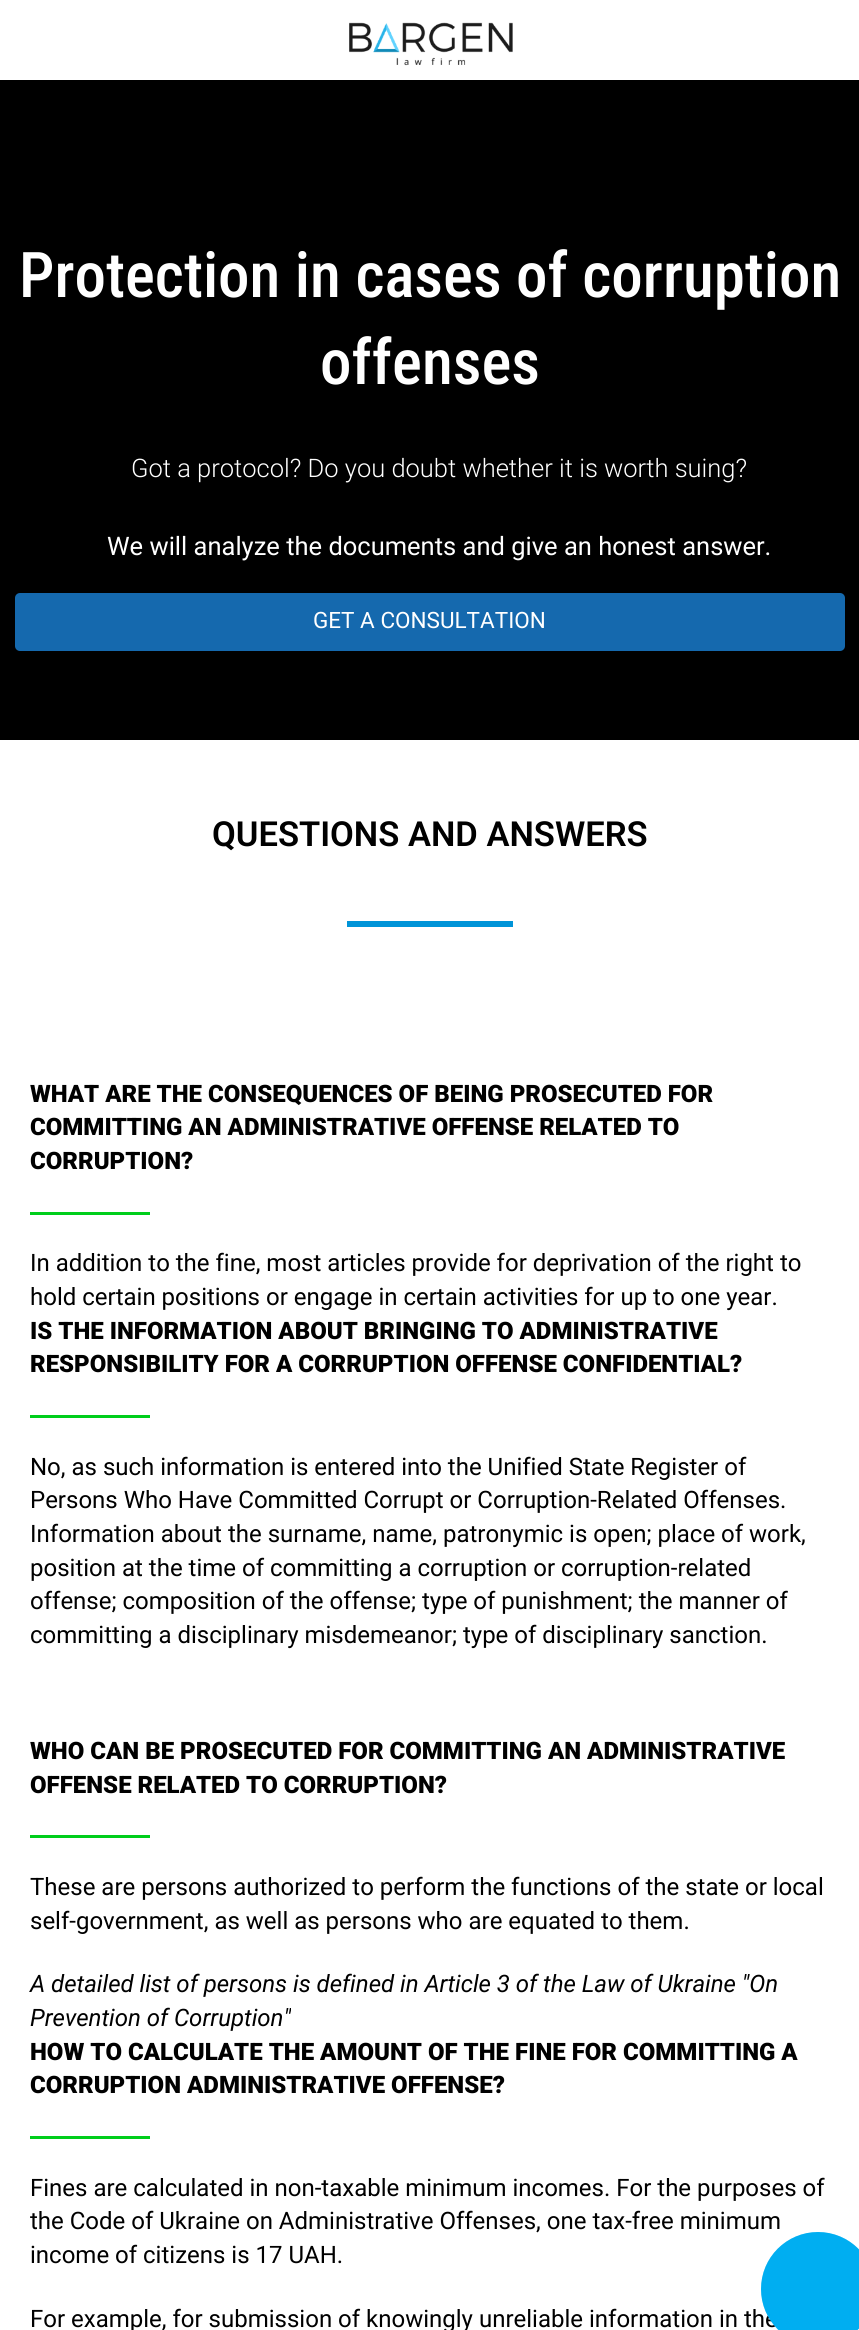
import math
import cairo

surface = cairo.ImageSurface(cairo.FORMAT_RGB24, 859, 2330)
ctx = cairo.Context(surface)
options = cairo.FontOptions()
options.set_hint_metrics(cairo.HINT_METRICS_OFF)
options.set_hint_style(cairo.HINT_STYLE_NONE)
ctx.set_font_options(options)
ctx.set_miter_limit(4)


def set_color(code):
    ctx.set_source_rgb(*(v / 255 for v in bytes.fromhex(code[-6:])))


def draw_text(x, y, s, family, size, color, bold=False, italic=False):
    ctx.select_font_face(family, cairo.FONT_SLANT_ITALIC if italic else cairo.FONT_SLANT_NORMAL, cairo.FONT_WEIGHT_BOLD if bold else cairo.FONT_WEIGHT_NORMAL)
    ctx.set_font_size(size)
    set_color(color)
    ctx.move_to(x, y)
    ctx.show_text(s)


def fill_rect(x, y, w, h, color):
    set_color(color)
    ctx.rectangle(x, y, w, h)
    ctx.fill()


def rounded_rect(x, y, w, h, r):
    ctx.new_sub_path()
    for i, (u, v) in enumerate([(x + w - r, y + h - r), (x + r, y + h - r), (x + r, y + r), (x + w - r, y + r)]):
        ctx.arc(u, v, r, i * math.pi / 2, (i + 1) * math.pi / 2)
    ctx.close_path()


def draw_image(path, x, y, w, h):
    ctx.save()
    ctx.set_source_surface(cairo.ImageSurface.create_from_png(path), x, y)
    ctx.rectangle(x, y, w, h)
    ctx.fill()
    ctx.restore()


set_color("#ffffff")
ctx.paint()
draw_image("assets/img1.png", 349, 22, 164, 44)
fill_rect(0, 80, 859, 660, "#000000")
draw_text(19, 297, "Protection in cases of corruption", "Roboto Condensed Medium", 63, "#ffffff")
draw_text(320, 384, "offenses", "Roboto Condensed Medium", 63, "#ffffff")
draw_text(131, 477, "Got a protocol? Do you doubt whether it is worth suing?", "Roboto Light", 25.5, "#ffffff")
draw_text(107, 555, "We will analyze the documents and give an honest answer.", "Roboto", 25.5, "#ffffff")
set_color("#1569ae")
rounded_rect(15, 593, 830, 58, 5)
ctx.fill()
draw_text(313, 628, "GET A CONSULTATION", "Roboto", 22.5, "#ffffff")
draw_text(212, 846, "QUESTIONS AND ANSWERS", "Roboto SemiBold", 34.5, "#000000")
fill_rect(347, 921, 166, 6, "#0094d8")
draw_text(30, 1102, "WHAT ARE THE CONSEQUENCES OF BEING PROSECUTED FOR", "Roboto Black", 24, "#000000")
draw_text(30, 1135, "COMMITTING AN ADMINISTRATIVE OFFENSE RELATED TO", "Roboto Black", 24, "#000000")
draw_text(30, 1169, "CORRUPTION?", "Roboto Black", 24, "#000000")
fill_rect(30, 1212, 120, 3, "#00ce1b")
draw_text(30, 1271, "In addition to the fine, most articles provide for deprivation of the right to", "Roboto", 24, "#000000")
draw_text(30, 1305, "hold certain positions or engage in certain activities for up to one year.", "Roboto", 24, "#000000")
draw_text(30, 1339, "IS THE INFORMATION ABOUT BRINGING TO ADMINISTRATIVE", "Roboto Black", 24, "#000000")
draw_text(30, 1372, "RESPONSIBILITY FOR A CORRUPTION OFFENSE CONFIDENTIAL?", "Roboto Black", 24, "#000000")
fill_rect(30, 1415, 120, 3, "#00ce1b")
draw_text(30, 1475, "No, as such information is entered into the Unified State Register of", "Roboto", 24, "#000000")
draw_text(30, 1508, "Persons Who Have Committed Corrupt or Corruption-Related Offenses.", "Roboto", 24, "#000000")
draw_text(30, 1542, "Information about the surname, name, patronymic is open; place of work,", "Roboto", 24, "#000000")
draw_text(30, 1576, "position at the time of committing a corruption or corruption-related", "Roboto", 24, "#000000")
draw_text(30, 1609, "offense; composition of the offense; type of punishment; the manner of", "Roboto", 24, "#000000")
draw_text(30, 1643, "committing a disciplinary misdemeanor; type of disciplinary sanction.", "Roboto", 24, "#000000")
draw_text(30, 1759, "WHO CAN BE PROSECUTED FOR COMMITTING AN ADMINISTRATIVE", "Roboto Black", 24, "#000000")
draw_text(30, 1793, "OFFENSE RELATED TO CORRUPTION?", "Roboto Black", 24, "#000000")
fill_rect(30, 1835, 120, 3, "#00ce1b")
draw_text(30, 1895, "These are persons authorized to perform the functions of the state or local", "Roboto", 24, "#000000")
draw_text(30, 1929, "self-government, as well as persons who are equated to them.", "Roboto", 24, "#000000")
draw_text(30, 1992, "A detailed list of persons is defined in Article 3 of the Law of Ukraine \"On", "Roboto", 24, "#000000", italic=True)
draw_text(30, 2026, "Prevention of Corruption\"", "Roboto", 24, "#000000", italic=True)
draw_text(30, 2060, "HOW TO CALCULATE THE AMOUNT OF THE FINE FOR COMMITTING A", "Roboto Black", 24, "#000000")
draw_text(30, 2093, "CORRUPTION ADMINISTRATIVE OFFENSE?", "Roboto Black", 24, "#000000")
fill_rect(30, 2136, 120, 3, "#00ce1b")
draw_text(30, 2196, "Fines are calculated in non-taxable minimum incomes. For the purposes of", "Roboto", 24, "#000000")
draw_text(30, 2229, "the Code of Ukraine on Administrative Offenses, one tax-free minimum", "Roboto", 24, "#000000")
draw_text(30, 2263, "income of citizens is 17 UAH.", "Roboto", 24, "#000000")
draw_text(30, 2327, "For example, for submission of knowingly unreliable information in the", "Roboto", 24, "#000000")
set_color("#00aff2")
ctx.new_path()
ctx.arc(818, 2289, 57, 0, 2 * math.pi)
ctx.fill()
ctx.set_source_rgba(0, 0.686, 0.949, 0.25)
ctx.arc(818, 2289, 57, 0, 2 * math.pi)
ctx.fill()
surface.write_to_png("output.png")
